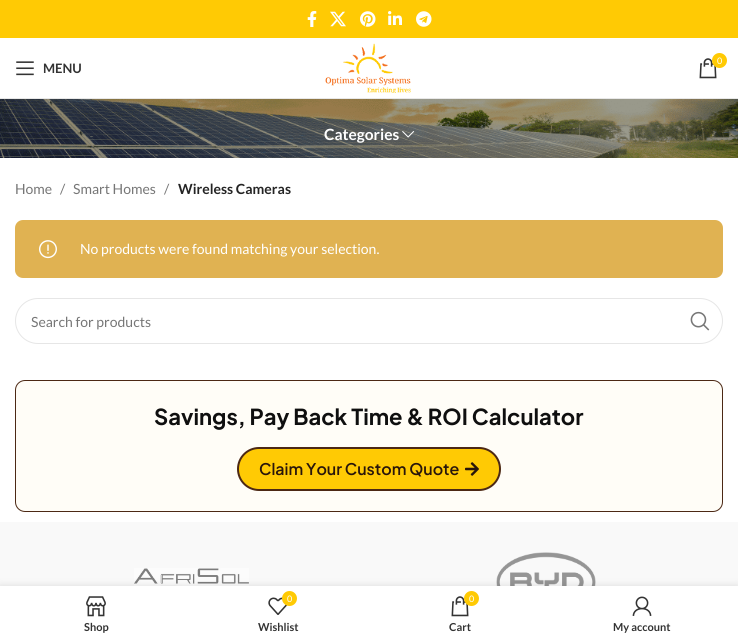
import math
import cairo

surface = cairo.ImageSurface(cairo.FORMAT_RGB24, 738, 641)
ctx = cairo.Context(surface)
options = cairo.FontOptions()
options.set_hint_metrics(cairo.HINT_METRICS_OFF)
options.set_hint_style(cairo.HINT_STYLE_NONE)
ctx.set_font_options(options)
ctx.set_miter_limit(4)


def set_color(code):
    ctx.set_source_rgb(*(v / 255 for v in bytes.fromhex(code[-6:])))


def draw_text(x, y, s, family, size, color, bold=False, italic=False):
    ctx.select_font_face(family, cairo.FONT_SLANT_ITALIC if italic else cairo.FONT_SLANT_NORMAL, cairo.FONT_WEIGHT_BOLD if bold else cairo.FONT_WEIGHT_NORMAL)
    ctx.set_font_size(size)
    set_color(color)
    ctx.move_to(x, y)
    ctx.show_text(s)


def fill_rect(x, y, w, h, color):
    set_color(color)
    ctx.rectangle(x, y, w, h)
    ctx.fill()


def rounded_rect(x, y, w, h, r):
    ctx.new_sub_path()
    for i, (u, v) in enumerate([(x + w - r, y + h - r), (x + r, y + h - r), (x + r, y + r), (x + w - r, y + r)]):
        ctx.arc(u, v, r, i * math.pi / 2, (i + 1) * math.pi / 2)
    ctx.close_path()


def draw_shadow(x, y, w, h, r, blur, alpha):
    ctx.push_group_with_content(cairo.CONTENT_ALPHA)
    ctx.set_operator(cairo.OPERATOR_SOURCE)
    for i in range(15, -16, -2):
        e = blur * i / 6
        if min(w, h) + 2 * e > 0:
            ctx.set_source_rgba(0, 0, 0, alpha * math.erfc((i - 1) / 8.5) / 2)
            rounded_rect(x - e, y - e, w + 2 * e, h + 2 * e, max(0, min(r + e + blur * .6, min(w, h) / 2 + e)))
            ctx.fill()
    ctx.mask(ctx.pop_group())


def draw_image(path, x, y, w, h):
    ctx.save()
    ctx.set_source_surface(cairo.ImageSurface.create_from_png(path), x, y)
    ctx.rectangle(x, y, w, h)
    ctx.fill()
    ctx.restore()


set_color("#ffffff")
ctx.paint()
fill_rect(0, 0, 738, 38, "#ffca04")
draw_image("assets/img1.png", 307, 11, 10, 16)
draw_image("assets/img2.png", 330, 11, 16, 16)
draw_image("assets/img3.png", 360, 11, 16, 16)
draw_image("assets/img4.png", 388, 11, 14, 14)
draw_image("assets/img5.png", 416, 11, 16, 16)
fill_rect(0, 98, 738, 1, "#e8e8e8")
draw_image("assets/img6.png", 325, 43, 86, 50)
draw_image("assets/img7.png", 699, 58, 18, 21)
set_color("#ffca04")
ctx.arc(719.5, 60.5, 7.5, 0, 2 * math.pi)
ctx.fill()
draw_text(717, 64, "0", "Lato", 9, "#ffffff")
draw_image("assets/img8.png", 16, 61, 18, 15)
draw_text(43, 73, "MENU", "Lato", 13, "#333333", bold=True)
draw_image("assets/img9.png", 0, 99, 738, 59)
draw_text(324, 140, "Categories", "Lato", 15.5, "#ffffff", bold=True)
draw_image("assets/img10.png", 402, 131, 13, 7)
draw_text(15, 194, "Home", "Lato", 14, "#767676")
draw_text(60, 194, "/", "Lato", 14, "#767676")
draw_text(73, 194, "Smart Homes", "Lato", 14, "#767676")
draw_text(164, 194, "/", "Lato", 14, "#767676")
draw_text(178, 194, "Wireless Cameras", "Lato", 14, "#242424", bold=True)
set_color("#e0b252")
rounded_rect(15, 220, 708, 58, 8)
ctx.fill()
draw_image("assets/img11.png", 39, 240, 18, 19)
draw_text(80, 254, "No products were found matching your selection.", "Lato", 14, "#ffffff")
rounded_rect(15.5, 298.5, 707, 45, 22.5)
set_color("#e6e6e6")
ctx.set_line_width(1)
ctx.stroke()
draw_text(31, 327, "Search for products", "Lato", 14, "#767676")
draw_image("assets/img12.png", 690, 311, 20, 20)
set_color("#fffdf7")
rounded_rect(15.5, 380.5, 707, 131, 9.5)
ctx.fill_preserve()
set_color("#4c2814")
ctx.stroke()
draw_text(154, 425, "Savings, Pay Back Time & ROI Calculator", "Plus Jakarta Sans", 22, "#0f0f0f", bold=True)
set_color("#ffca04")
rounded_rect(238, 448, 262, 42, 21)
ctx.fill_preserve()
set_color("#4c2814")
ctx.set_line_width(2)
ctx.stroke()
draw_text(259, 475, "Claim Your Custom Quote", "Plus Jakarta Sans SemiBold", 16, "#29160b")
draw_image("assets/img13.png", 465, 462, 14, 14)
fill_rect(0, 522, 738, 64, "#f9f9f9")
draw_image("assets/img14.png", 134, 568, 115, 18)
draw_image("assets/img15.png", 496, 552, 100, 34)
set_color("#000000")
draw_shadow(0, 586, 738, 55, 0, 4.5, 0.12)
fill_rect(0, 586, 738, 55, "#ffffff")
draw_image("assets/img16.png", 86, 596, 20, 21)
draw_text(84, 631, "Shop", "Lato", 11, "#333333", bold=True)
draw_image("assets/img17.png", 268, 597, 20, 18)
set_color("#ffca04")
ctx.arc(289.5, 598.5, 7.5, 0, 2 * math.pi)
ctx.fill()
draw_text(287, 602, "0", "Lato", 9, "#ffffff")
draw_text(258, 631, "Wishlist", "Lato", 11, "#333333", bold=True)
draw_image("assets/img7.png", 451, 596, 18, 21)
set_color("#ffca04")
ctx.arc(471.5, 598.5, 7.5, 0, 2 * math.pi)
ctx.fill()
draw_text(469, 602, "0", "Lato", 9, "#ffffff")
draw_text(449, 631, "Cart", "Lato", 11, "#333333", bold=True)
draw_image("assets/img18.png", 632, 596, 20, 20)
draw_text(613, 631, "My account", "Lato", 11, "#333333", bold=True)
surface.write_to_png("output.png")
